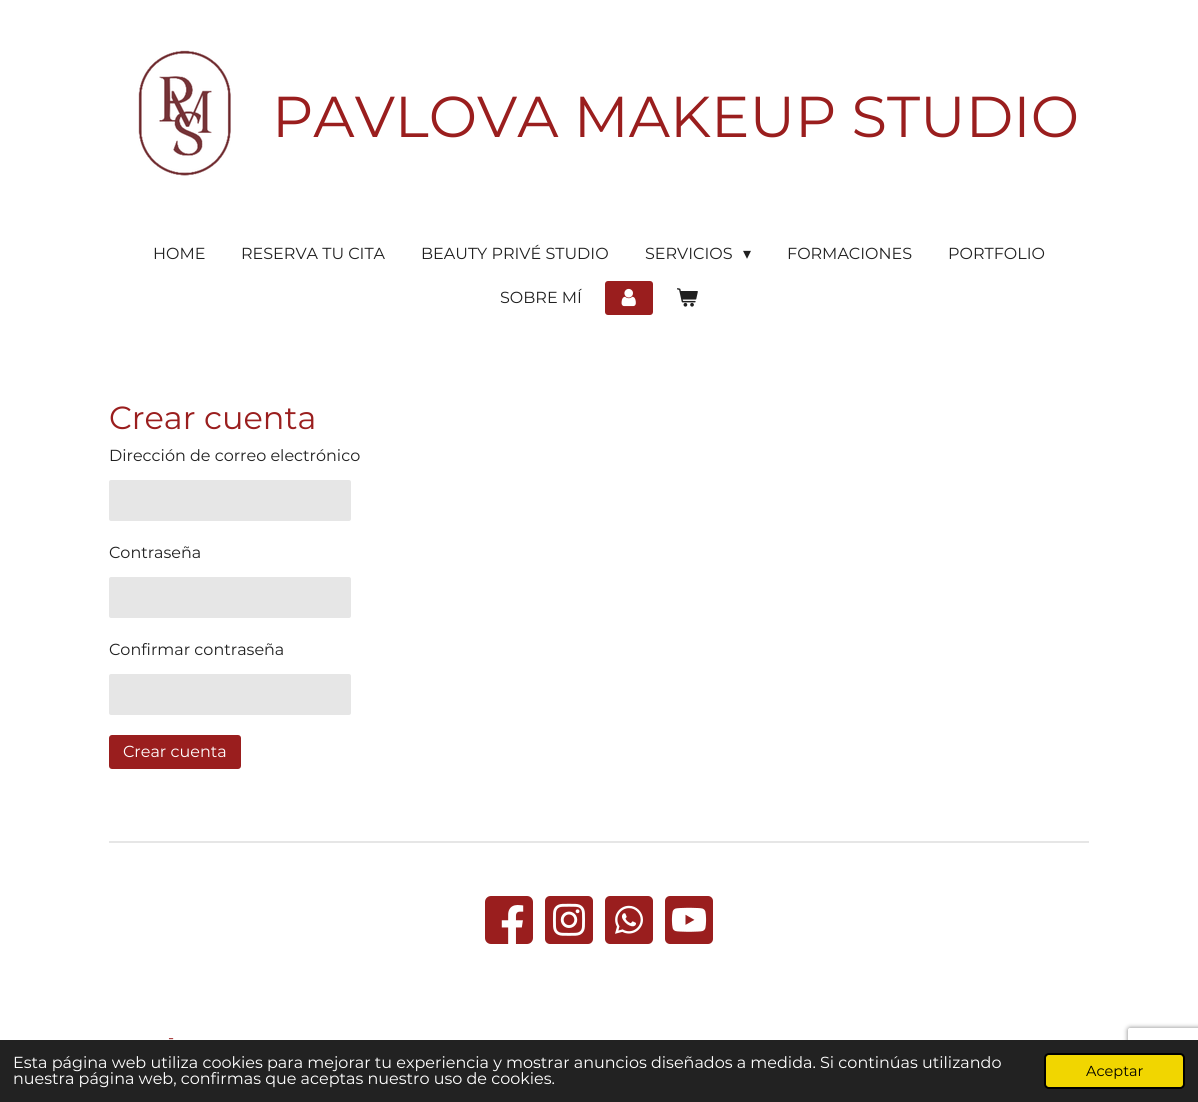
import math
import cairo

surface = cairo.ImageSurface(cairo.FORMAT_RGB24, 1198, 1102)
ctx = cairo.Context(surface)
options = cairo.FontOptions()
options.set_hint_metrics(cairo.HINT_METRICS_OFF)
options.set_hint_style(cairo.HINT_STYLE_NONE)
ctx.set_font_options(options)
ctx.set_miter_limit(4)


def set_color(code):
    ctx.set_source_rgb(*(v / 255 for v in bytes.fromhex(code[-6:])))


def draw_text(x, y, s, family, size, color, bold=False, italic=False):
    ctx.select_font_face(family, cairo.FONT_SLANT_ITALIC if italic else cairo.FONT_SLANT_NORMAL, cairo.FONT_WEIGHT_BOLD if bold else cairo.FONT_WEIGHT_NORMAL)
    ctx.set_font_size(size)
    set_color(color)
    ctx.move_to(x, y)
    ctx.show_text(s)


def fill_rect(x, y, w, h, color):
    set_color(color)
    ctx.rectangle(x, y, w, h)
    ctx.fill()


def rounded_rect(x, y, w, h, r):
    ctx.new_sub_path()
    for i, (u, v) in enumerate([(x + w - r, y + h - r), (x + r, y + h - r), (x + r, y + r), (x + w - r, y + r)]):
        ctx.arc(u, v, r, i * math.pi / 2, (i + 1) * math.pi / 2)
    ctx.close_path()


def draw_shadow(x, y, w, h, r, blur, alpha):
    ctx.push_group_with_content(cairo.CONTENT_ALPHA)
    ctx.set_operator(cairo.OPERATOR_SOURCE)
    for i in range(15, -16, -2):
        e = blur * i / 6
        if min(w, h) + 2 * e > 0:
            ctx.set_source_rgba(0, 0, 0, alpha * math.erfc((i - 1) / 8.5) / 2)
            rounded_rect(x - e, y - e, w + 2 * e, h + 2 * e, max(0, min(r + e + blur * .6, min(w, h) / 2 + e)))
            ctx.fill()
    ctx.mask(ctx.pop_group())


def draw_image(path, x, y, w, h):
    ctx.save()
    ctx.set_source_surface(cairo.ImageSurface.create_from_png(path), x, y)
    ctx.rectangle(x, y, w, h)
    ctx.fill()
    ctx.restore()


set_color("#ffffff")
ctx.paint()
draw_image("assets/img1.png", 138, 50, 93, 126)
draw_text(272, 137, "PAVLOVA MAKEUP STUDIO", "Montserrat", 57.6, "#9a1e1e")
draw_text(153, 259, "HOME", "Montserrat", 16, "#202020")
draw_text(241, 259, "RESERVA TU CITA", "Montserrat", 16, "#202020")
draw_text(421, 259, "BEAUTY PRIVÉ STUDIO", "Montserrat", 16, "#202020")
draw_text(645, 259, "SERVICIOS", "Montserrat", 16, "#202020")
draw_text(743, 259, "▾", "DejaVu Sans", 16, "#202020")
draw_text(787, 259, "FORMACIONES", "Montserrat", 16, "#202020")
draw_text(948, 259, "PORTFOLIO", "Montserrat", 16, "#202020")
draw_text(500, 303, "SOBRE MÍ", "Montserrat", 16, "#202020")
set_color("#9a1e1e")
rounded_rect(605, 281, 48, 34, 3)
ctx.fill()
draw_image("assets/img2.png", 621, 288, 15, 19)
draw_image("assets/img3.png", 677, 288, 21, 19)
draw_text(109, 429, "Crear cuenta", "Montserrat", 32, "#9a1e1e")
draw_text(109, 461, "Dirección de correo electrónico", "Montserrat", 16, "#202020")
set_color("#e6e6e6")
rounded_rect(109, 480, 242, 41, 2)
ctx.fill()
draw_text(109, 558, "Contraseña", "Montserrat", 16, "#202020")
set_color("#e6e6e6")
rounded_rect(109, 577, 242, 41, 2)
ctx.fill()
draw_text(109, 655, "Confirmar contraseña", "Montserrat", 16, "#202020")
set_color("#e6e6e6")
rounded_rect(109, 674, 242, 41, 2)
ctx.fill()
set_color("#9a1e1e")
rounded_rect(109, 735, 132, 34, 3)
ctx.fill()
draw_text(123, 757, "Crear cuenta", "Montserrat", 16, "#ffffff")
fill_rect(109, 841, 980, 2, "#e6e6e6")
set_color("#9a1e1e")
rounded_rect(485, 896, 48, 48, 6)
ctx.fill()
draw_image("assets/img4.png", 501, 905, 23, 39)
rounded_rect(545, 896, 48, 48, 5)
ctx.fill()
draw_image("assets/img5.png", 553, 903, 32, 33)
rounded_rect(605, 896, 48, 48, 5)
ctx.fill()
draw_image("assets/img6.png", 615, 905, 28, 29)
rounded_rect(665, 896, 48, 48, 5)
ctx.fill()
draw_image("assets/img7.png", 671, 907, 36, 25)
draw_text(168, 1043, "-", "Montserrat", 16, "#9a1e1e")
ctx.save()
ctx.set_fill_rule(cairo.FILL_RULE_EVEN_ODD)
ctx.new_path()
ctx.move_to(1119, 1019)
ctx.line_to(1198, 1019)
ctx.line_to(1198, 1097)
ctx.line_to(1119, 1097)
ctx.close_path()
ctx.move_to(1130, 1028)
ctx.line_to(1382, 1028)
ctx.curve_to(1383, 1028, 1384, 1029, 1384, 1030)
ctx.line_to(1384, 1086)
ctx.curve_to(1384, 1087, 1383, 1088, 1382, 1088)
ctx.line_to(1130, 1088)
ctx.curve_to(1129, 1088, 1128, 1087, 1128, 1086)
ctx.line_to(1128, 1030)
ctx.curve_to(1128, 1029, 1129, 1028, 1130, 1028)
ctx.close_path()
ctx.clip()
set_color("#808080")
draw_shadow(1128, 1028, 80, 60, 2, 2.5, 1)
ctx.restore()
fill_rect(0, 1040, 1198, 62, "#222222")
draw_text(13, 1068, "Esta página web utiliza cookies para mejorar tu experiencia y mostrar anuncios diseñados a medida. Si continúas utilizando", "Montserrat", 16, "#ffffff")
draw_text(13, 1084, "nuestra página web, confirmas que aceptas nuestro uso de cookies.", "Montserrat", 16, "#ffffff")
set_color("#f1d600")
rounded_rect(1045, 1054, 139, 34, 4)
ctx.fill_preserve()
set_color("#000000")
ctx.stroke()
draw_text(1086, 1076, "Aceptar", "Montserrat", 14.5, "#000000")
surface.write_to_png("output.png")
